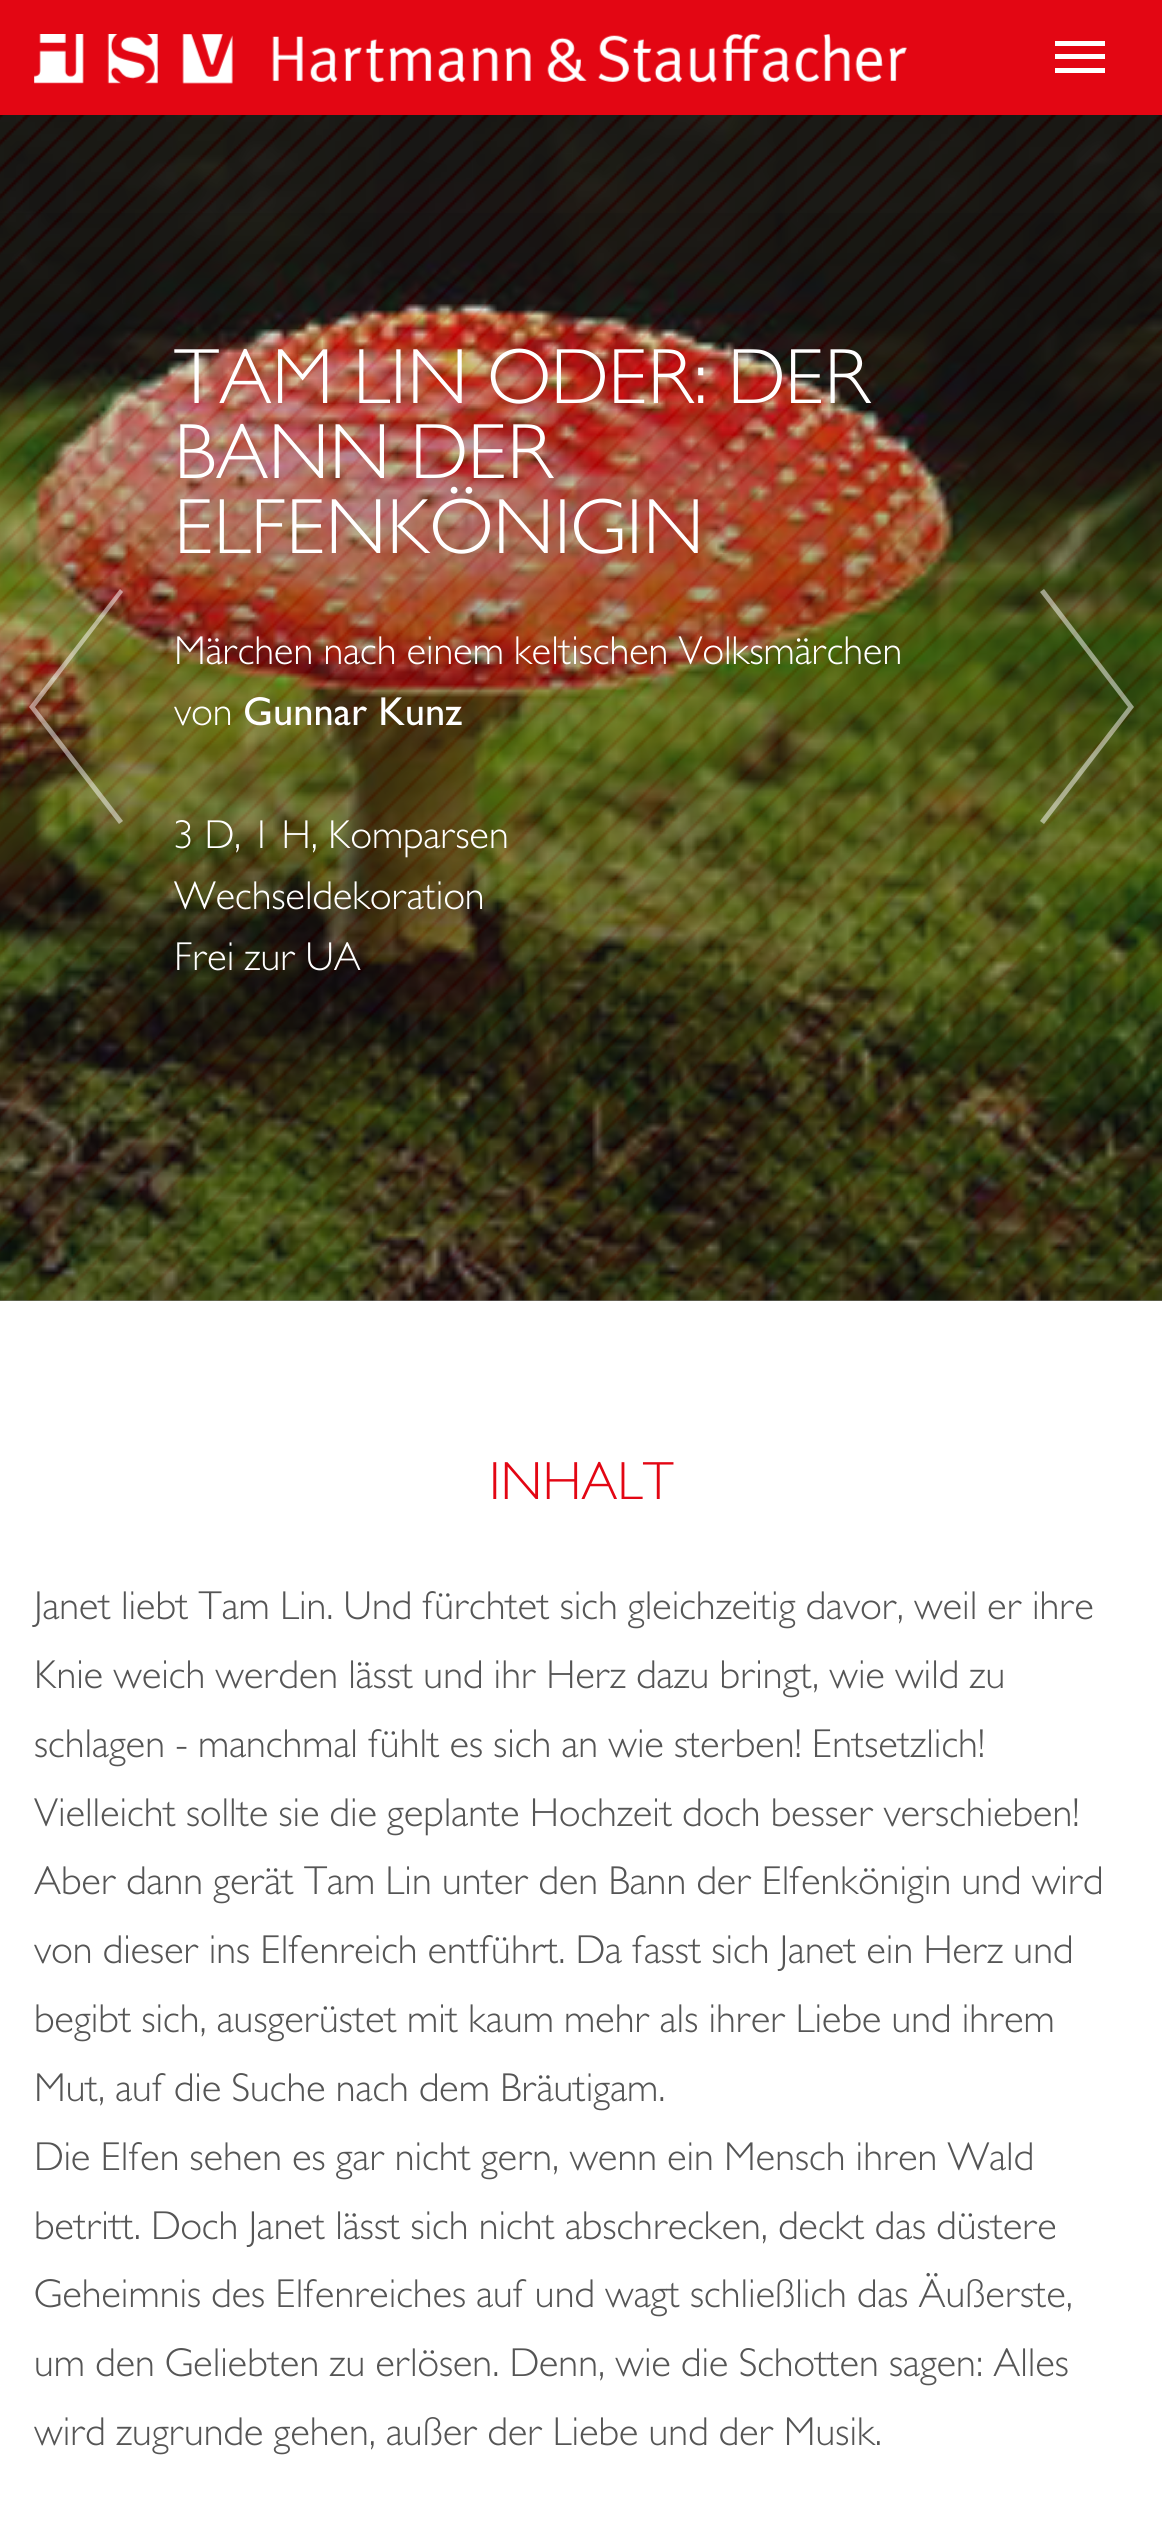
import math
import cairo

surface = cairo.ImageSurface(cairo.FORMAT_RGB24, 1162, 2521)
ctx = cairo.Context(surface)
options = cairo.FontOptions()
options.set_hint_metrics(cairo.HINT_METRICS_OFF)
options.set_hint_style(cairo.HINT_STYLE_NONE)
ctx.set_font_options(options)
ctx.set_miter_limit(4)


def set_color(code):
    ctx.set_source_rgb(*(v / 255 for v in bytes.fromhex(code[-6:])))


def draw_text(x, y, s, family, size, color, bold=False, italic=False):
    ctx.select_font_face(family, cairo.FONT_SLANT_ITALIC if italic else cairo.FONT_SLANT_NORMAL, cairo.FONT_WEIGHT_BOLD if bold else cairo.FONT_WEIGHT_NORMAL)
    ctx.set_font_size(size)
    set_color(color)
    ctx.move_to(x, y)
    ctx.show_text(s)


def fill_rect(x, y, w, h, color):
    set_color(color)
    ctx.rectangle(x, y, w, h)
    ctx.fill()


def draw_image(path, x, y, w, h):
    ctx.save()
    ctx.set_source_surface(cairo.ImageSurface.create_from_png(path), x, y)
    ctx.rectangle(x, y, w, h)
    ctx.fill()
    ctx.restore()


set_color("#ffffff")
ctx.paint()
fill_rect(0, 0, 1162, 115, "#e30613")
draw_image("assets/img1.png", 34, 34, 873, 50)
fill_rect(1055, 41, 50, 5, "#ffffff")
fill_rect(1055, 54, 50, 5, "#ffffff")
fill_rect(1055, 68, 50, 5, "#ffffff")
draw_image("assets/img2.png", 0, 115, 1162, 1186)
draw_image("assets/img3.png", 0, 115, 1162, 1186)
gradient = cairo.LinearGradient(582, 112, 582, 1301)
gradient.add_color_stop_rgba(0, 0, 0, 0, 0)
gradient.add_color_stop_rgba(0.37, 0, 0, 0, 0.3)
gradient.add_color_stop_rgba(1, 0, 0, 0, 0.5)
ctx.set_source(gradient)
ctx.rectangle(0, 213, 1162, 1088)
ctx.fill()
ctx.set_source_rgba(1, 1, 1, 0.5)
ctx.new_path()
ctx.move_to(119, 824)
ctx.line_to(29, 707)
ctx.line_to(120, 589)
ctx.line_to(123, 592)
ctx.line_to(35, 707)
ctx.line_to(123, 821)
ctx.close_path()
ctx.fill()
draw_text(174, 403, "TAM LIN ODER: DER", "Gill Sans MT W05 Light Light", 78.75, "#ffffff")
draw_text(174, 478, "BANN DER", "Gill Sans MT W05 Light Light", 78.75, "#ffffff")
draw_text(174, 553, "ELFENKÖNIGIN", "Gill Sans MT W05 Light Light", 78.75, "#ffffff")
draw_text(174, 664, "Märchen nach einem keltischen Volksmärchen", "Gill Sans MT W05 Light Light", 40.5, "#ffffff")
draw_text(174, 725, "von", "Gill Sans MT W05 Light Light", 40.5, "#ffffff")
draw_text(243, 725, "Gunnar Kunz", "Gill Sans Medium", 40.5, "#ffffff")
draw_text(174, 848, "3 D, 1 H, Komparsen", "Gill Sans MT W05 Light Light", 40.5, "#ffffff")
draw_text(174, 909, "Wechseldekoration", "Gill Sans MT W05 Light Light", 40.5, "#ffffff")
draw_text(174, 970, "Frei zur UA", "Gill Sans MT W05 Light Light", 40.5, "#ffffff")
ctx.set_source_rgba(1, 1, 1, 0.5)
ctx.new_path()
ctx.move_to(1044, 824)
ctx.line_to(1134, 707)
ctx.line_to(1044, 589)
ctx.line_to(1040, 592)
ctx.line_to(1128, 707)
ctx.line_to(1040, 821)
ctx.close_path()
ctx.fill()
draw_text(489, 1499, "INHALT", "Gill Sans MT W05 Light Light", 54, "#e30613")
draw_text(34, 1619, "Janet liebt Tam Lin. Und fürchtet sich gleichzeitig davor, weil er ihre", "Gill Sans MT W05 Light Light", 40.5, "#555555")
draw_text(34, 1688, "Knie weich werden lässt und ihr Herz dazu bringt, wie wild zu", "Gill Sans MT W05 Light Light", 40.5, "#555555")
draw_text(34, 1757, "schlagen - manchmal fühlt es sich an wie sterben! Entsetzlich!", "Gill Sans MT W05 Light Light", 40.5, "#555555")
draw_text(34, 1826, "Vielleicht sollte sie die geplante Hochzeit doch besser verschieben!", "Gill Sans MT W05 Light Light", 40.5, "#555555")
draw_text(34, 1894, "Aber dann gerät Tam Lin unter den Bann der Elfenkönigin und wird", "Gill Sans MT W05 Light Light", 40.5, "#555555")
draw_text(34, 1963, "von dieser ins Elfenreich entführt. Da fasst sich Janet ein Herz und", "Gill Sans MT W05 Light Light", 40.5, "#555555")
draw_text(34, 2032, "begibt sich, ausgerüstet mit kaum mehr als ihrer Liebe und ihrem", "Gill Sans MT W05 Light Light", 40.5, "#555555")
draw_text(34, 2101, "Mut, auf die Suche nach dem Bräutigam.", "Gill Sans MT W05 Light Light", 40.5, "#555555")
draw_text(34, 2170, "Die Elfen sehen es gar nicht gern, wenn ein Mensch ihren Wald", "Gill Sans MT W05 Light Light", 40.5, "#555555")
draw_text(34, 2239, "betritt. Doch Janet lässt sich nicht abschrecken, deckt das düstere", "Gill Sans MT W05 Light Light", 40.5, "#555555")
draw_text(34, 2307, "Geheimnis des Elfenreiches auf und wagt schließlich das Äußerste,", "Gill Sans MT W05 Light Light", 40.5, "#555555")
draw_text(34, 2376, "um den Geliebten zu erlösen. Denn, wie die Schotten sagen: Alles", "Gill Sans MT W05 Light Light", 40.5, "#555555")
draw_text(34, 2445, "wird zugrunde gehen, außer der Liebe und der Musik.", "Gill Sans MT W05 Light Light", 40.5, "#555555")
surface.write_to_png("output.png")
